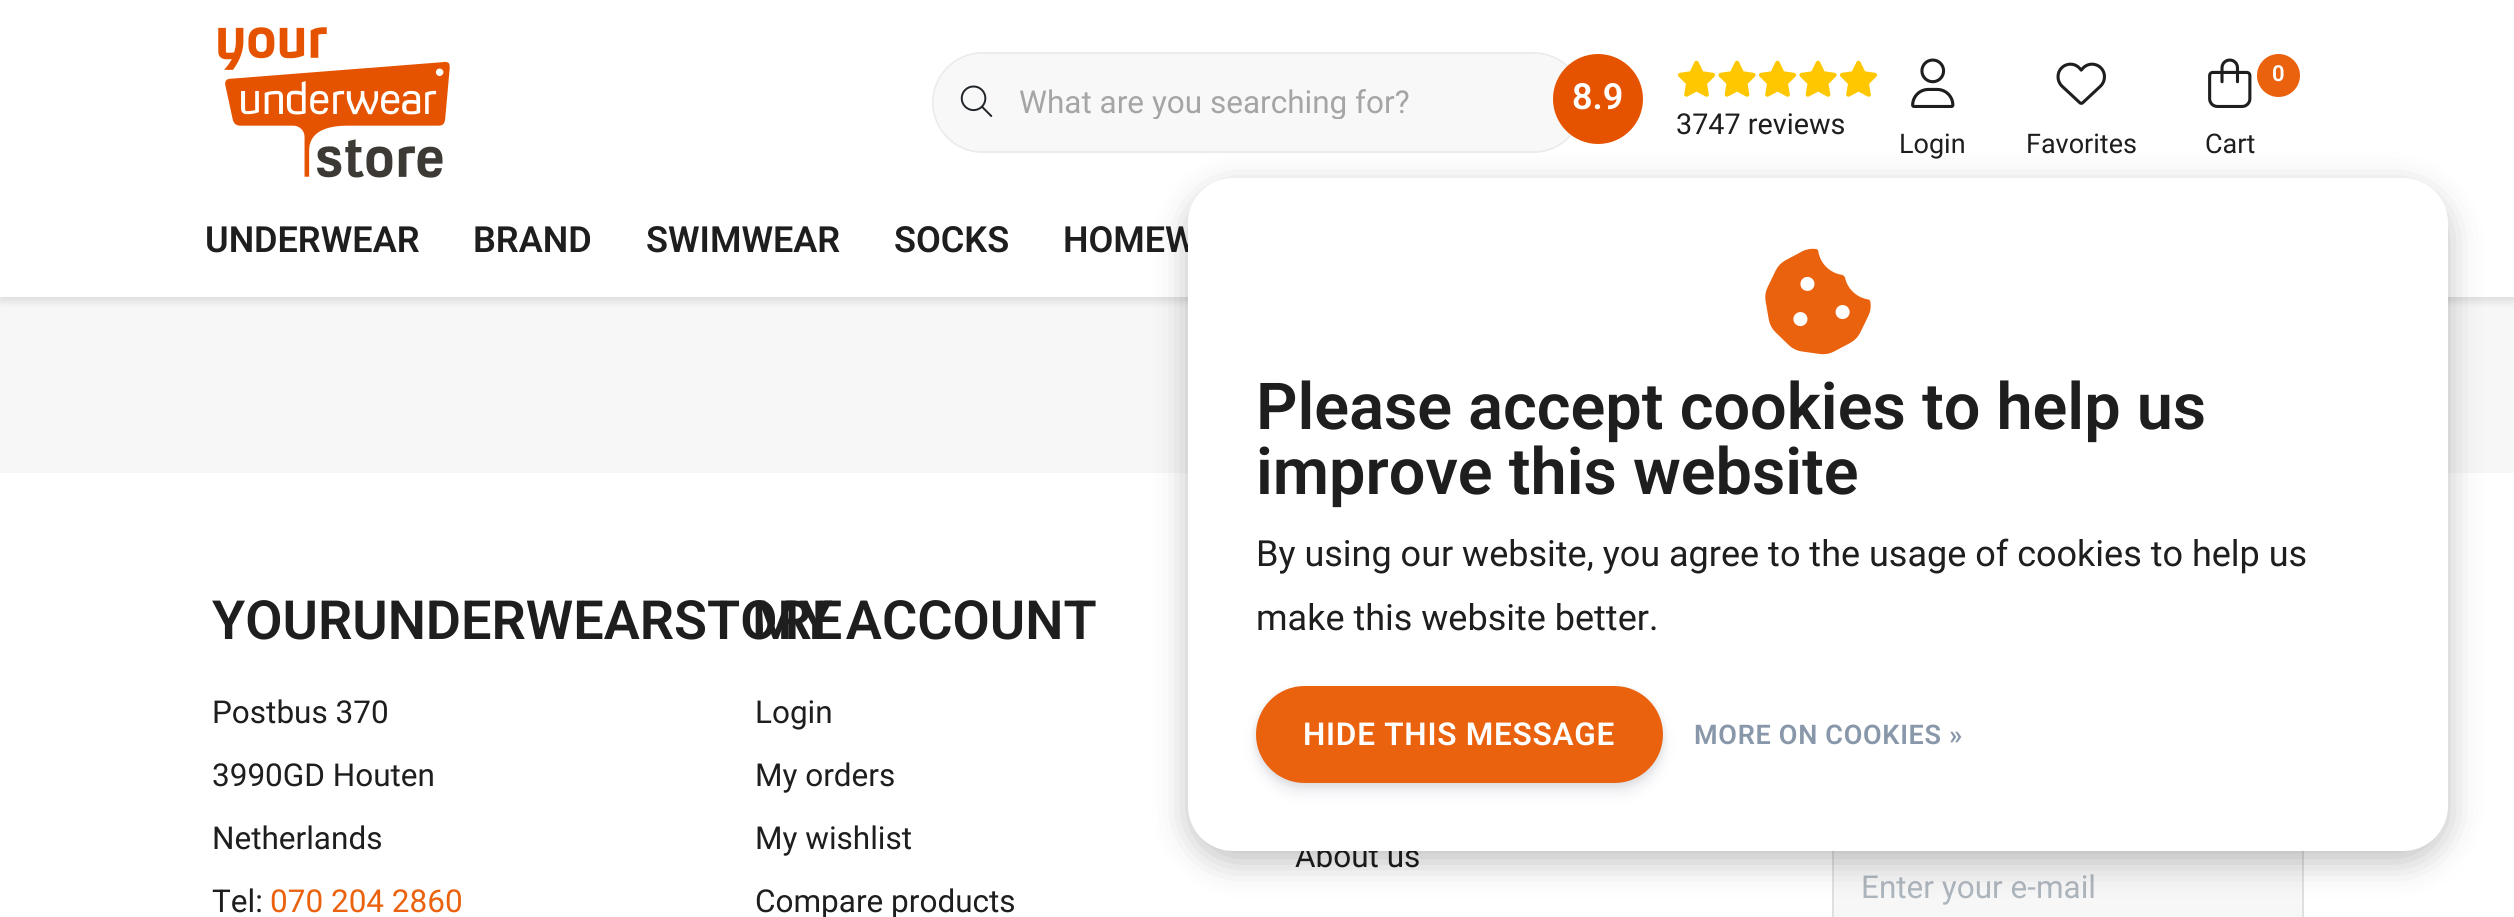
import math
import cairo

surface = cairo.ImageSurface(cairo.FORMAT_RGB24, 2514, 917)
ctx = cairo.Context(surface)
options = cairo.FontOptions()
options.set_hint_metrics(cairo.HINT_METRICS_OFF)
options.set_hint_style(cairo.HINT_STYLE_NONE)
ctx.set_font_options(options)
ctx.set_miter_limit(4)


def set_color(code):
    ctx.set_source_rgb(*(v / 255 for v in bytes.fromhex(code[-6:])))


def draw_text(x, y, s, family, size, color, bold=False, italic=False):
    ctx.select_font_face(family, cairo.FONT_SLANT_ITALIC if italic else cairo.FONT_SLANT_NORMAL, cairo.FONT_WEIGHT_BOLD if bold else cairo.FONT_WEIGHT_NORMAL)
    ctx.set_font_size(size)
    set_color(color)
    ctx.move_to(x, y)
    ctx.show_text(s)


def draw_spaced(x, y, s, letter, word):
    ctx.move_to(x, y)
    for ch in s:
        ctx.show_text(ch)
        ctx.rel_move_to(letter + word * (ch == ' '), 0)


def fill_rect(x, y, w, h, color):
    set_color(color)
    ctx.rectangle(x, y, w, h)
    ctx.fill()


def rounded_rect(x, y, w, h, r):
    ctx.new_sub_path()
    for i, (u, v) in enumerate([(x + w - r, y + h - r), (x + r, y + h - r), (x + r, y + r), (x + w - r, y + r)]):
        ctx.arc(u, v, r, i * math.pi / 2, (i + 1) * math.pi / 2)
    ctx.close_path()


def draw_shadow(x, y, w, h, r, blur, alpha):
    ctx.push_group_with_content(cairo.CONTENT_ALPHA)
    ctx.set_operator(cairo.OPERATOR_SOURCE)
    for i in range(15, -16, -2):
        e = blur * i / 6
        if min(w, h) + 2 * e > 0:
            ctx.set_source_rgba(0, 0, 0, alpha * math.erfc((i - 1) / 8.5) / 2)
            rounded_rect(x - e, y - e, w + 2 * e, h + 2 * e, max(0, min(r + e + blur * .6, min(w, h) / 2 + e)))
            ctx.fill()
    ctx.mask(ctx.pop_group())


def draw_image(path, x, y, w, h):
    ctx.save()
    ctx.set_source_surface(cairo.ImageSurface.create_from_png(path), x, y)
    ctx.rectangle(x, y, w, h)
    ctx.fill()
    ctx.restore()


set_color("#f7f7f7")
ctx.paint()
set_color("#000000")
draw_shadow(0, 5, 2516, 297, 0, 3.5, 0.1)
fill_rect(0, 0, 2514, 297, "#ffffff")
draw_image("assets/img1.png", 218, 27, 232, 151)
rounded_rect(933, 53, 650, 99, 49.5)
set_color("#e9ecef")
ctx.stroke()
set_color("#f8f8f8")
ctx.new_path()
ctx.move_to(982.5, 54)
ctx.line_to(1019, 54)
ctx.line_to(1019, 151)
ctx.line_to(982.5, 151)
ctx.curve_to(955.5, 151, 934, 129.5, 934, 102.5)
ctx.curve_to(934, 75.5, 955.5, 54, 982.5, 54)
ctx.close_path()
ctx.fill()
draw_image("assets/img2.png", 960, 85, 33, 32)
ctx.new_path()
ctx.move_to(1019, 54)
ctx.line_to(1533.5, 54)
ctx.curve_to(1560.5, 54, 1582, 75.5, 1582, 102.5)
ctx.curve_to(1582, 129.5, 1560.5, 151, 1533.5, 151)
ctx.line_to(1019, 151)
ctx.close_path()
ctx.fill()
ctx.save()
ctx.rectangle(1019, 83, 504, 36)
ctx.clip()
draw_text(1019, 113, "What are you searching for?", "Roboto", 31.5, "#a5a5a5")
ctx.restore()
set_color("#e65300")
ctx.new_path()
ctx.arc(1598, 99, 45, 0, 2 * math.pi)
ctx.fill()
draw_text(1572, 109, "8.9", "Roboto SemiBold", 36, "#ffffff")
draw_image("assets/img3.png", 1678, 60, 38, 37)
draw_image("assets/img4.png", 1718, 60, 38, 37)
draw_image("assets/img3.png", 1759, 60, 38, 37)
draw_image("assets/img4.png", 1799, 60, 38, 37)
draw_image("assets/img3.png", 1840, 60, 38, 37)
draw_text(1676, 134, "3747 reviews", "Roboto", 28.75, "#1e1e1e")
draw_image("assets/img5.png", 2208, 58, 44, 50)
set_color("#ea620e")
ctx.arc(2278.5, 75.5, 21.5, 0, 2 * math.pi)
ctx.fill()
draw_text(2272, 81, "0", "Roboto SemiBold", 22, "#ffffff")
draw_text(2205, 153, "Cart", "Roboto", 27, "#1e1e1e")
draw_image("assets/img6.png", 1911, 58, 44, 50)
draw_text(1899, 153, "Login", "Roboto", 27, "#1e1e1e")
draw_image("assets/img7.png", 2056, 62, 50, 43)
draw_text(2026, 153, "Favorites", "Roboto", 27, "#1e1e1e")
draw_text(205, 252, "UNDERWEAR", "Roboto SemiBold", 36, "#1e1e1e")
draw_text(473, 252, "BRAND", "Roboto SemiBold", 36, "#1e1e1e")
draw_text(646, 252, "SWIMWEAR", "Roboto SemiBold", 36, "#1e1e1e")
draw_text(894, 252, "SOCKS", "Roboto SemiBold", 36, "#1e1e1e")
draw_text(1063, 252, "HOMEW", "Roboto SemiBold", 36, "#1e1e1e")
fill_rect(0, 473, 2514, 444, "#ffffff")
draw_text(212, 639, "YOURUNDERWEARSTORE", "Roboto SemiBold", 54, "#1e1e1e")
draw_text(212, 723, "Postbus 370", "Roboto", 31.5, "#1e1e1e")
draw_text(212, 786, "3990GD Houten", "Roboto", 31.5, "#1e1e1e")
draw_text(212, 849, "Netherlands", "Roboto", 31.5, "#1e1e1e")
draw_text(212, 912, "Tel:", "Roboto", 31.5, "#1e1e1e")
draw_text(270, 912, "070 204 2860", "Roboto", 31.5, "#ea620e")
draw_text(752, 639, "MY ACCOUNT", "Roboto SemiBold", 54, "#1e1e1e")
draw_text(755, 723, "Login", "Roboto", 31.5, "#1e1e1e")
draw_text(755, 786, "My orders", "Roboto", 31.5, "#1e1e1e")
draw_text(755, 849, "My wishlist", "Roboto", 31.5, "#1e1e1e")
draw_text(755, 912, "Compare products", "Roboto", 31.5, "#1e1e1e")
draw_text(1295, 867, "About us", "Roboto", 31.5, "#1e1e1e")
ctx.rectangle(1833, 843, 470, 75)
set_color("#e0e0e0")
ctx.stroke()
set_color("#f7f7f7")
rounded_rect(1834, 844, 468, 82, 9)
ctx.fill()
draw_text(1861, 898, "Enter your e-mail", "Roboto", 31.5, "#adb5bd")
set_color("#000000")
draw_shadow(1188, 189, 1260, 673, 45, 17, 0.25)
set_color("#ffffff")
rounded_rect(1188, 178, 1260, 673, 45)
ctx.fill()
draw_image("assets/img8.png", 1765, 248, 106, 107)
draw_text(1256, 429, "Please accept cookies to help us", "Roboto SemiBold", 64.75, "#1e1e1e")
draw_text(1256, 494, "improve this website", "Roboto SemiBold", 64.75, "#1e1e1e")
draw_text(1256, 566, "By using our website, you agree to the usage of cookies to help us", "Roboto", 36, "#1e1e1e")
draw_text(1256, 630, "make this website better.", "Roboto", 36, "#1e1e1e")
set_color("#000000")
draw_shadow(1256, 689, 407, 96, 48, 3.5, 0.08)
set_color("#32325d")
draw_shadow(1256, 695, 407, 97, 48.5, 7, 0.11)
set_color("#ea620e")
rounded_rect(1257, 687, 405, 95, 47.5)
ctx.fill_preserve()
ctx.stroke()
ctx.select_font_face("Roboto SemiBold")
ctx.set_font_size(31.5)
set_color("#ffffff")
draw_spaced(1303, 745, "HIDE THIS MESSAGE", 0.75, 0)
ctx.set_font_size(27)
set_color("#8898aa")
draw_spaced(1694, 744, "MORE ON COOKIES »", 0.7, 0)
surface.write_to_png("output.png")
